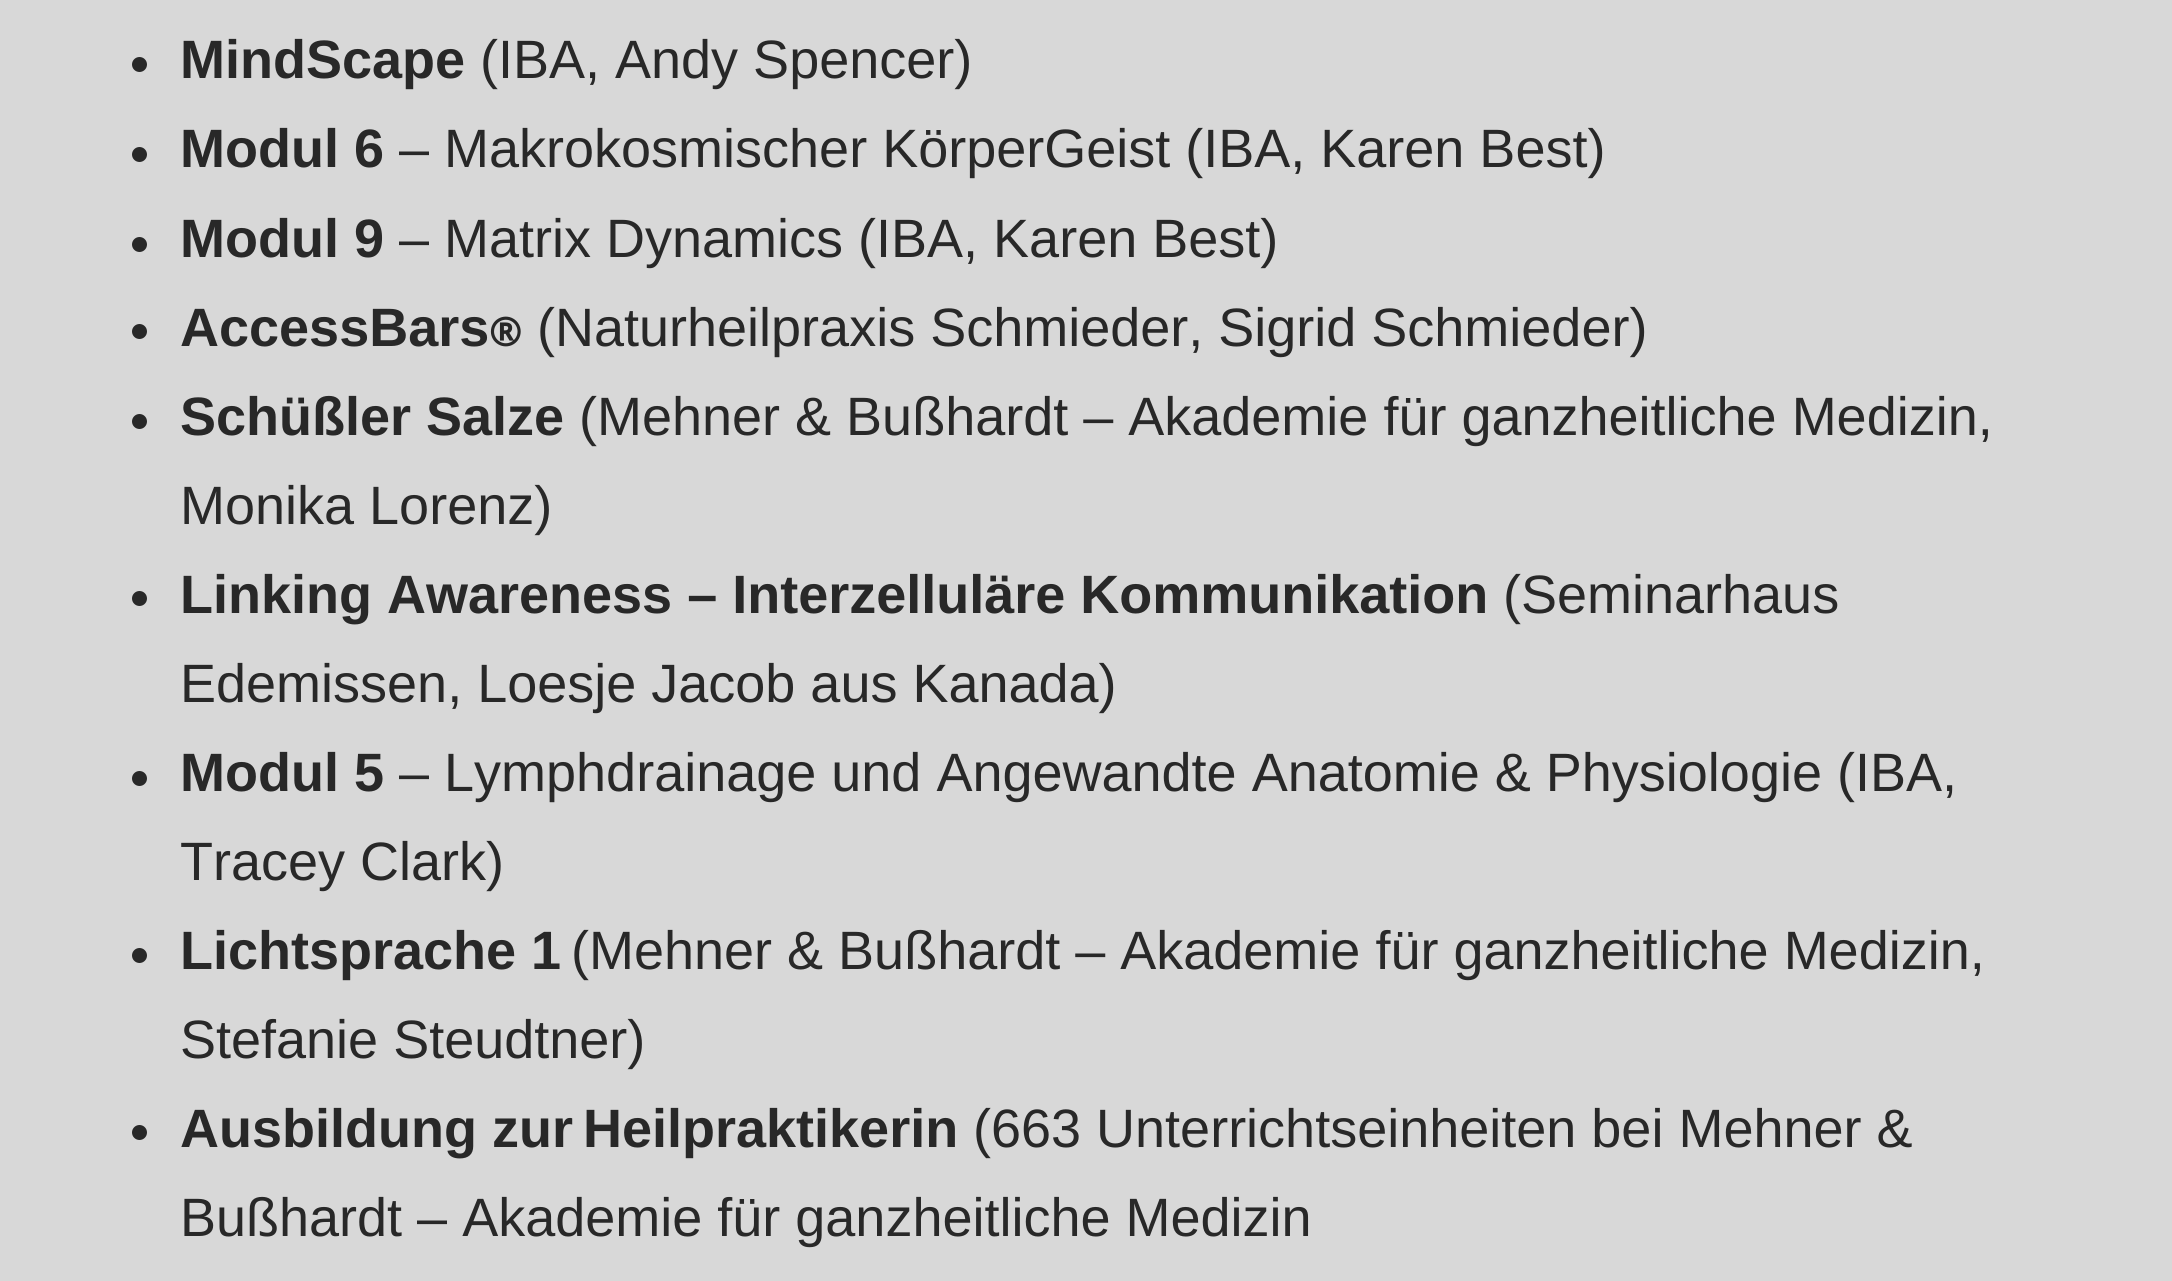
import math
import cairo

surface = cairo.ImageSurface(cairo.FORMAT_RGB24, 2172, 1281)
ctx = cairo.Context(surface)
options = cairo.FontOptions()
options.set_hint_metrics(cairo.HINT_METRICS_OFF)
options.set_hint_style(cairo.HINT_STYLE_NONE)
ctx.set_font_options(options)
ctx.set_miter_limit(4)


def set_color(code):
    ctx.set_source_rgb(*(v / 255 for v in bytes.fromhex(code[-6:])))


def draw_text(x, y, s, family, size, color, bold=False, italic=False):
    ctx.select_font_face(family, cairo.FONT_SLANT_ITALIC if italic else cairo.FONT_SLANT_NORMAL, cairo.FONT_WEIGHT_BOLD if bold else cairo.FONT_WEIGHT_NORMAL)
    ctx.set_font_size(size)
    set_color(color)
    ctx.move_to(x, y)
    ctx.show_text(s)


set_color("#d8d8d8")
ctx.paint()
set_color("#282828")
ctx.arc(139.5, 64.5, 7.5, 0, 2 * math.pi)
ctx.fill()
draw_text(180, 78, "MindScape", "Liberation Sans", 54, "#282828", bold=True)
draw_text(480, 78, "(IBA, Andy Spencer)", "Liberation Sans", 54, "#282828")
ctx.new_path()
ctx.arc(139.5, 154.5, 7.5, 0, 2 * math.pi)
ctx.fill()
draw_text(180, 167, "Modul 6", "Liberation Sans", 54, "#282828", bold=True)
draw_text(399, 167, "– Makrokosmischer KörperGeist (IBA, Karen Best)", "Liberation Sans", 54, "#282828")
ctx.new_path()
ctx.arc(139.5, 244.5, 7.5, 0, 2 * math.pi)
ctx.fill()
draw_text(180, 257, "Modul 9", "Liberation Sans", 54, "#282828", bold=True)
draw_text(399, 257, "– Matrix Dynamics (IBA, Karen Best)", "Liberation Sans", 54, "#282828")
ctx.new_path()
ctx.arc(139.5, 331.5, 7.5, 0, 2 * math.pi)
ctx.fill()
draw_text(180, 346, "AccessBars", "Liberation Sans", 54, "#282828", bold=True)
draw_text(489, 346, "®", "Open Sans", 39, "#282828", bold=True)
draw_text(537, 346, "(Naturheilpraxis Schmieder, Sigrid Schmieder)", "Liberation Sans", 54, "#282828")
ctx.new_path()
ctx.arc(139.5, 421.5, 7.5, 0, 2 * math.pi)
ctx.fill()
draw_text(180, 435, "Schüßler Salze", "Liberation Sans", 54, "#282828", bold=True)
draw_text(579, 435, "(Mehner & Bußhardt – Akademie für ganzheitliche Medizin,", "Liberation Sans", 54, "#282828")
draw_text(180, 524, "Monika Lorenz)", "Liberation Sans", 54, "#282828")
ctx.new_path()
ctx.arc(139.5, 598.5, 7.5, 0, 2 * math.pi)
ctx.fill()
draw_text(180, 613, "Linking Awareness – Interzelluläre Kommunikation", "Liberation Sans", 54, "#282828", bold=True)
draw_text(1503, 613, "(Seminarhaus", "Liberation Sans", 54, "#282828")
draw_text(180, 702, "Edemissen, Loesje Jacob aus Kanada)", "Liberation Sans", 54, "#282828")
ctx.new_path()
ctx.arc(139.5, 778.5, 7.5, 0, 2 * math.pi)
ctx.fill()
draw_text(180, 791, "Modul 5", "Liberation Sans", 54, "#282828", bold=True)
draw_text(399, 791, "– Lymphdrainage und Angewandte Anatomie & Physiologie (IBA,", "Liberation Sans", 54, "#282828")
draw_text(180, 880, "Tracey Clark)", "Liberation Sans", 54, "#282828")
ctx.new_path()
ctx.arc(139.5, 955.5, 7.5, 0, 2 * math.pi)
ctx.fill()
draw_text(180, 969, "Lichtsprache 1", "Liberation Sans", 54, "#282828", bold=True)
draw_text(571, 969, "(Mehner & Bußhardt – Akademie für ganzheitliche Medizin,", "Liberation Sans", 54, "#282828")
draw_text(180, 1058, "Stefanie Steudtner)", "Liberation Sans", 54, "#282828")
ctx.new_path()
ctx.arc(139.5, 1132.5, 7.5, 0, 2 * math.pi)
ctx.fill()
draw_text(180, 1147, "Ausbildung zur", "Liberation Sans", 54, "#282828", bold=True)
draw_text(583, 1147, "Heilpraktikerin", "Liberation Sans", 54, "#282828", bold=True)
draw_text(973, 1147, "(663 Unterrichtseinheiten bei Mehner &", "Liberation Sans", 54, "#282828")
draw_text(180, 1236, "Bußhardt – Akademie für ganzheitliche Medizin", "Liberation Sans", 54, "#282828")
surface.write_to_png("output.png")
